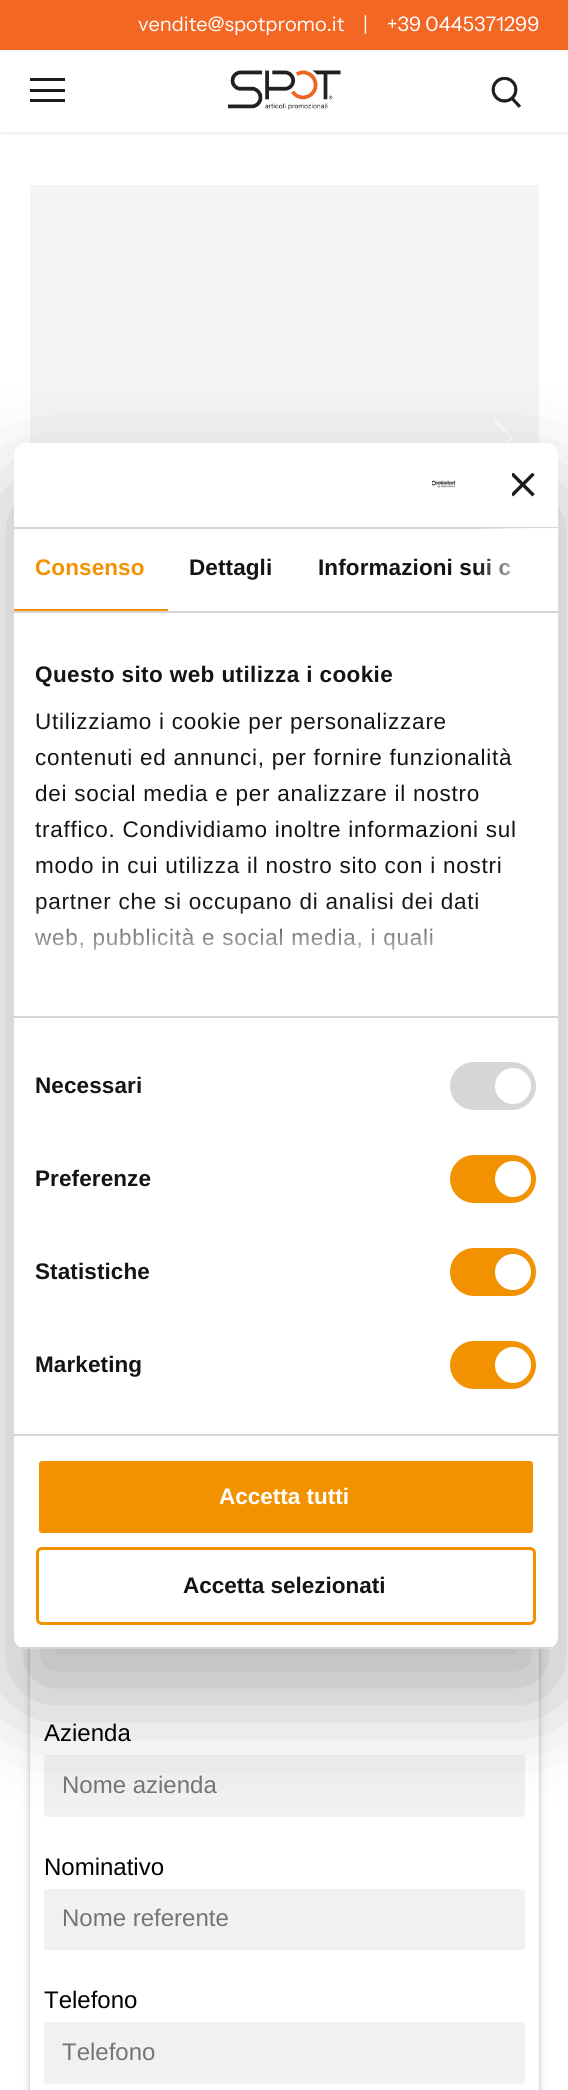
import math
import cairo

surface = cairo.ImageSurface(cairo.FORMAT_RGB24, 568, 2090)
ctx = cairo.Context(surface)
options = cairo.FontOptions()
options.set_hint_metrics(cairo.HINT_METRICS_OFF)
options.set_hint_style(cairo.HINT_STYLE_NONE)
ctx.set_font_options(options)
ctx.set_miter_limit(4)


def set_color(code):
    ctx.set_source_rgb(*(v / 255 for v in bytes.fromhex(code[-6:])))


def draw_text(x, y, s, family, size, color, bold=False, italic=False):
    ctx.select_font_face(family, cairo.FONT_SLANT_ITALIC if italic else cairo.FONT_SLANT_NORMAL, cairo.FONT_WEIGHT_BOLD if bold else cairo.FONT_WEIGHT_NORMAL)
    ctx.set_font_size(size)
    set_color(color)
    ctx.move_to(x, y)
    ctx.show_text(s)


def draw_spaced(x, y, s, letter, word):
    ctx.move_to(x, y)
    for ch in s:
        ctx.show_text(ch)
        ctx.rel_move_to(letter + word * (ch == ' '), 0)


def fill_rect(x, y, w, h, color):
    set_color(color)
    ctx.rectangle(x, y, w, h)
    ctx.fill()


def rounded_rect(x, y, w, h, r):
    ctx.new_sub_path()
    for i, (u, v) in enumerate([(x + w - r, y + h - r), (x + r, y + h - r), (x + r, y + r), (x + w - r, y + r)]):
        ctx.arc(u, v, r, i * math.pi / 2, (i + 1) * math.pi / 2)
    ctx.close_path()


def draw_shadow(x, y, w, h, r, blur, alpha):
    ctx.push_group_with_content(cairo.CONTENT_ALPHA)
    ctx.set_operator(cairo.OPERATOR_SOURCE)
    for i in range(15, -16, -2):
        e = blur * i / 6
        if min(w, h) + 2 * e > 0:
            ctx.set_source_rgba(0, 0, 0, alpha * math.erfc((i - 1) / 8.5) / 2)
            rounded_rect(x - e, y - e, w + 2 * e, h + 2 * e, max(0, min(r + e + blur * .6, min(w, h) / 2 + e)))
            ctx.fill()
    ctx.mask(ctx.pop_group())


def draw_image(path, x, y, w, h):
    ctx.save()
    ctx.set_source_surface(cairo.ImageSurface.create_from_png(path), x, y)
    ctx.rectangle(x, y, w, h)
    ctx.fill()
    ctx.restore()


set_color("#ffffff")
ctx.paint()
ctx.save()
ctx.rectangle(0, 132, 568, 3)
ctx.clip()
set_color("#000000")
draw_shadow(-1, 48, 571, 86, 0, 2, 0.08)
ctx.restore()
fill_rect(0, 0, 568, 50, "#f36624")
draw_text(138, 31, "vendite@spotpromo.it", "Instrument Sans", 20, "#ffffff")
draw_text(363, 31, "|", "Instrument Sans", 20, "#ffffff")
draw_text(387, 31, "+39 0445371299", "Instrument Sans", 20, "#ffffff")
fill_rect(30, 78, 35, 3, "#1b1b1b")
fill_rect(30, 89, 35, 3, "#1b1b1b")
fill_rect(30, 99, 35, 3, "#1b1b1b")
draw_image("assets/img1.png", 228, 70, 113, 40)
draw_image("assets/img2.png", 491, 77, 30, 31)
fill_rect(30, 185, 509, 258, "#f4f4f4")
set_color("#f6f6f6")
ctx.new_path()
ctx.move_to(75.5, 421)
ctx.line_to(74, 419)
ctx.line_to(55, 438)
ctx.line_to(74, 457)
ctx.line_to(75.5, 455)
ctx.line_to(58, 438)
ctx.close_path()
ctx.fill()
set_color("#fcfcfc")
ctx.new_path()
ctx.move_to(495, 419)
ctx.line_to(493, 421)
ctx.line_to(510.5, 438)
ctx.line_to(493, 455)
ctx.line_to(495, 457)
ctx.line_to(513.5, 438)
ctx.close_path()
ctx.fill()
set_color("#000000")
draw_shadow(30, 1491, 509, 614, 3, 4, 0.2)
draw_shadow(30, 1493, 509, 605, 3, 1.5, 0.14)
fill_rect(30, 1649, 509, 441, "#ffffff")
draw_text(44, 1741, "Azienda", "Liberation Sans", 24, "#000000")
set_color("#f1f1f1")
rounded_rect(44, 1755, 481, 62, 3)
ctx.fill()
draw_text(62, 1793, "Nome azienda", "Liberation Sans", 24, "#757575")
draw_text(44, 1875, "Nominativo", "Liberation Sans", 24, "#000000")
set_color("#f1f1f1")
rounded_rect(44, 1889, 481, 61, 3)
ctx.fill()
draw_text(62, 1926, "Nome referente", "Liberation Sans", 24, "#757575")
draw_text(44, 2008, "Telefono", "Liberation Sans", 24, "#000000")
set_color("#f1f1f1")
rounded_rect(44, 2022, 481, 62, 3)
ctx.fill()
draw_text(62, 2060, "Telefono", "Liberation Sans", 24, "#757575")
set_color("#000000")
draw_shadow(14, 491, 544, 1206, 12, 51, 0.3)
set_color("#ffffff")
rounded_rect(14, 443, 544, 1206, 12)
ctx.fill()
fill_rect(14, 527, 544, 2, "#d6d6d6")
draw_image("assets/img3.png", 432, 480, 24, 8)
draw_image("assets/img4.png", 512, 473, 23, 24)
fill_rect(14, 611, 544, 2, "#d6d6d6")
fill_rect(14, 609, 154, 2, "#f39200")
ctx.select_font_face("Liberation Sans", cairo.FONT_SLANT_NORMAL, cairo.FONT_WEIGHT_BOLD)
ctx.set_font_size(22.5)
draw_spaced(35, 575, "Consenso", 0.1, 0)
set_color("#141414")
draw_spaced(189, 575, "Dettagli", 0.1, 0)
draw_spaced(318, 575, "Informazioni sui c", 0.1, 0)
gradient = cairo.LinearGradient(557, 569, 478, 569)
gradient.add_color_stop_rgba(0, 1, 1, 1, 1)
gradient.add_color_stop_rgba(0.5, 1, 1, 1, 0.8)
gradient.add_color_stop_rgba(1, 1, 1, 1, 0)
ctx.set_source(gradient)
ctx.rectangle(479, 528, 79, 48)
ctx.fill()
fill_rect(14, 1016, 544, 2, "#d6d6d6")
set_color("#141414")
draw_spaced(35, 682, "Questo sito web utilizza i cookie", 0.4, 0)
ctx.select_font_face("Liberation Sans")
draw_spaced(35, 729, "Utilizziamo i cookie per personalizzare", 0.75, 0)
draw_spaced(35, 765, "contenuti ed annunci, per fornire funzionalità", 0.75, 0)
draw_spaced(35, 801, "dei social media e per analizzare il nostro", 0.75, 0)
draw_spaced(35, 837, "traffico. Condividiamo inoltre informazioni sul", 0.75, 0)
draw_spaced(35, 873, "modo in cui utilizza il nostro sito con i nostri", 0.75, 0)
draw_spaced(35, 909, "partner che si occupano di analisi dei dati", 0.75, 0)
draw_spaced(35, 945, "web, pubblicità e social media, i quali", 0.75, 0)
gradient = cairo.LinearGradient(275, 1016, 275, 903)
gradient.add_color_stop_rgba(0, 1, 1, 1, 1)
gradient.add_color_stop_rgba(0.5, 1, 1, 1, 0.8)
gradient.add_color_stop_rgba(1, 1, 1, 1, 0)
ctx.set_source(gradient)
ctx.rectangle(34, 905, 444, 45)
ctx.fill()
fill_rect(14, 1434, 544, 2, "#d6d6d6")
ctx.select_font_face("Liberation Sans", cairo.FONT_SLANT_NORMAL, cairo.FONT_WEIGHT_BOLD)
set_color("#141414")
draw_spaced(35, 1093, "Necessari", 0.1, 0)
set_color("#d6d6d6")
rounded_rect(450, 1062, 86, 48, 24)
ctx.fill()
set_color("#ffffff")
ctx.arc(513, 1086, 18, 0, 2 * math.pi)
ctx.fill()
set_color("#141414")
draw_spaced(35, 1186, "Preferenze", 0.1, 0)
set_color("#f39200")
rounded_rect(450, 1155, 86, 48, 24)
ctx.fill()
set_color("#ffffff")
ctx.arc(513, 1179, 18, 0, 2 * math.pi)
ctx.fill()
set_color("#141414")
draw_spaced(35, 1279, "Statistiche", 0.1, 0)
set_color("#f39200")
rounded_rect(450, 1248, 86, 48, 24)
ctx.fill()
set_color("#ffffff")
ctx.arc(513, 1272, 18, 0, 2 * math.pi)
ctx.fill()
set_color("#141414")
draw_spaced(35, 1372, "Marketing", 0.1, 0)
set_color("#f39200")
rounded_rect(450, 1341, 86, 48, 24)
ctx.fill()
set_color("#ffffff")
ctx.arc(513, 1365, 18, 0, 2 * math.pi)
ctx.fill()
ctx.save()
rounded_rect(14, 443, 544, 1206, 12)
ctx.clip()
fill_rect(14, 1647, 544, 2, "#d6d6d6")
ctx.restore()
set_color("#f39200")
rounded_rect(37.5, 1459.5, 497, 75, 4.5)
ctx.fill_preserve()
set_color("#ffffff")
ctx.set_line_width(3)
ctx.stroke()
draw_text(219, 1504, "Accetta tutti", "Liberation Sans", 22.5, "#ffffff", bold=True)
rounded_rect(37.5, 1548.5, 497, 75, 4.5)
set_color("#f39200")
ctx.stroke()
draw_text(183, 1593, "Accetta selezionati", "Liberation Sans", 22.5, "#141414", bold=True)
surface.write_to_png("output.png")
